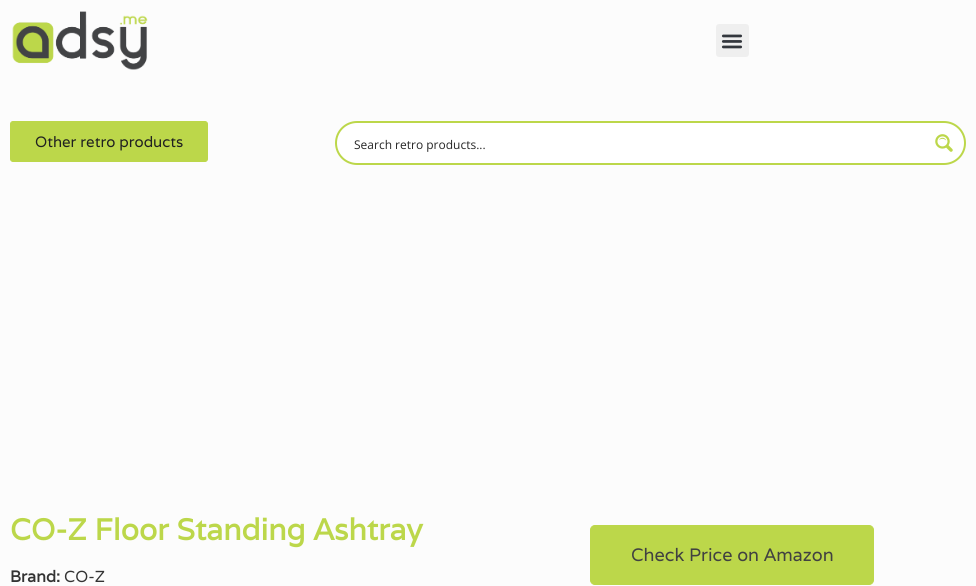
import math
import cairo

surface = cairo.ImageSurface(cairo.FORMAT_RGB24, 976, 586)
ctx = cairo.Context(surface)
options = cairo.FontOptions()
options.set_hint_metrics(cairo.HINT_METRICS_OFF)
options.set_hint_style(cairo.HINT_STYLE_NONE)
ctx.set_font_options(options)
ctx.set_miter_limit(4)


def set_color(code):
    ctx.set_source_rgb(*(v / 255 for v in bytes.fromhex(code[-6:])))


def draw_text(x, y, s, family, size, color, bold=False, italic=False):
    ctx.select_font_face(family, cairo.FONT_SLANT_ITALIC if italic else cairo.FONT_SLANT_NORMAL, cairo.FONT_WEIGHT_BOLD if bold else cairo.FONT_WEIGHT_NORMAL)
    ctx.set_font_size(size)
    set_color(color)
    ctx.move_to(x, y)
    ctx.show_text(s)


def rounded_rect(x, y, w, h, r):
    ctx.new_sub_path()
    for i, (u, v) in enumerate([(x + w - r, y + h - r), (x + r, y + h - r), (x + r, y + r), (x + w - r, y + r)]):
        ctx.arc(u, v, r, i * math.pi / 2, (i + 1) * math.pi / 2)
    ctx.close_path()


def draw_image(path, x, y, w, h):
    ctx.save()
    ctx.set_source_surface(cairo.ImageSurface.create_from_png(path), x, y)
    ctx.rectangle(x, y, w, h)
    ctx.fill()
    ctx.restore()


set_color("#fcfcfc")
ctx.paint()
draw_image("assets/img1.png", 12, 11, 136, 59)
set_color("#efefef")
rounded_rect(716, 24, 33, 33, 3)
ctx.fill()
draw_image("assets/img2.png", 721, 34, 22, 15)
set_color("#bcd74a")
rounded_rect(10.5, 121.5, 197, 40, 2.5)
ctx.fill_preserve()
ctx.set_line_width(1)
ctx.stroke()
draw_text(35, 147, "Other retro products", "Varela", 15, "#202020")
set_color("#ffffff")
rounded_rect(336, 122, 629, 42, 21)
ctx.fill_preserve()
set_color("#bcd74a")
ctx.set_line_width(2)
ctx.stroke()
draw_text(354, 149, "Search retro products...", "Open Sans", 12, "#262626")
draw_image("assets/img3.png", 935, 134, 18, 18)
draw_text(10, 540, "CO-Z Floor Standing Ashtray", "Varela", 30, "#bcd74a", bold=True)
draw_text(10, 582, "Brand:", "Varela", 16, "#333333", bold=True)
draw_text(64, 582, "CO-Z", "Varela", 16, "#333333")
set_color("#bcd74a")
rounded_rect(590.5, 525.5, 283, 59, 4.5)
ctx.fill_preserve()
ctx.set_line_width(1)
ctx.stroke()
draw_text(631, 561, "Check Price on Amazon", "Varela", 18, "#414141")
surface.write_to_png("output.png")
